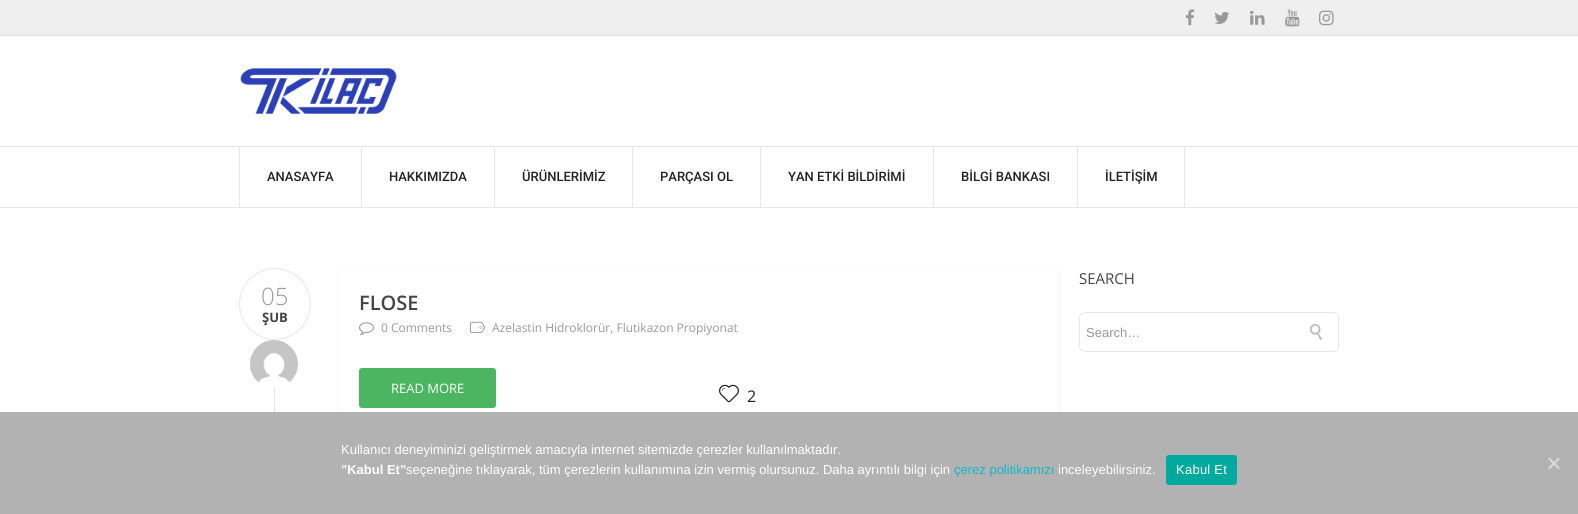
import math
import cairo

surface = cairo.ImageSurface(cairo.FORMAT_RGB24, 1578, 514)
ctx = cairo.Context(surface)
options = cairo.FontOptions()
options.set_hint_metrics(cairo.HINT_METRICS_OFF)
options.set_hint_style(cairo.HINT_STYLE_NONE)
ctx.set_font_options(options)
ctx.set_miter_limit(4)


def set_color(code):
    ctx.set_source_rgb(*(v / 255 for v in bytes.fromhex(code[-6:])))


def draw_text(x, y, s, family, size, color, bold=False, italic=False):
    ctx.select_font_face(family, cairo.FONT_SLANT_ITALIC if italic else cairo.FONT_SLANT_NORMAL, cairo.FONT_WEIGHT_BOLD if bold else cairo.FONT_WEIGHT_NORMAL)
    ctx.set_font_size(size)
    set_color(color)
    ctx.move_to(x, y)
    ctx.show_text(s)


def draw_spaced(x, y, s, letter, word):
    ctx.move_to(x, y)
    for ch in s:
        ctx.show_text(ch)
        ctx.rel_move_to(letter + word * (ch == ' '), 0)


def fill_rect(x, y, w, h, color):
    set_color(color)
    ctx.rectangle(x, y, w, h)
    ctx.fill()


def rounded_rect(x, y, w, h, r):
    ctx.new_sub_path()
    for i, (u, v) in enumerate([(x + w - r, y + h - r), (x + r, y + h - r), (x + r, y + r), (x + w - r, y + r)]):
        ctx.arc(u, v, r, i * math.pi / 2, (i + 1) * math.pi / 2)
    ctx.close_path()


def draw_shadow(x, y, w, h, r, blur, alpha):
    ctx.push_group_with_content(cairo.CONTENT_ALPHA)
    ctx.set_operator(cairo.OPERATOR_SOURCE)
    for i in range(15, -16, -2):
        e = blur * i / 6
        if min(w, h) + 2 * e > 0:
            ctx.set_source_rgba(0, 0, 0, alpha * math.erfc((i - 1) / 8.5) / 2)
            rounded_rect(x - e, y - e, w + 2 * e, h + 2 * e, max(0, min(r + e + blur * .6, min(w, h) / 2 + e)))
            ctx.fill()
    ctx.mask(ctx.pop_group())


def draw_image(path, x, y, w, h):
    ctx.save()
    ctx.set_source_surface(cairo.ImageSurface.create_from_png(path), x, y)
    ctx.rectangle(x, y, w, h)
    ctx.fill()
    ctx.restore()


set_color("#ffffff")
ctx.paint()
fill_rect(0, 0, 1578, 35, "#efefef")
fill_rect(0, 35, 1578, 1, "#e1e1e1")
draw_image("assets/img1.png", 1185, 9, 10, 17)
draw_image("assets/img2.png", 1214, 11, 16, 13)
draw_image("assets/img3.png", 1250, 10, 15, 15)
draw_image("assets/img4.png", 1285, 9, 15, 18)
draw_image("assets/img5.png", 1319, 10, 15, 16)
draw_image("assets/img6.png", 240, 68, 157, 46)
fill_rect(0, 146, 1578, 1, "#e7e7e7")
fill_rect(0, 207, 1578, 1, "#e7e7e7")
fill_rect(239, 147, 1, 60, "#e7e7e7")
draw_text(267, 181, "ANASAYFA", "Roboto Medium", 13, "#222222")
fill_rect(361, 147, 1, 60, "#e7e7e7")
draw_text(389, 181, "HAKKIMIZDA", "Roboto Medium", 13, "#222222")
fill_rect(494, 147, 1, 60, "#e7e7e7")
draw_text(522, 181, "ÜRÜNLERİMİZ", "Roboto Medium", 13, "#222222")
fill_rect(632, 147, 1, 60, "#e7e7e7")
draw_text(660, 181, "PARÇASI OL", "Roboto Medium", 13, "#222222")
fill_rect(760, 147, 1, 60, "#e7e7e7")
draw_text(788, 181, "YAN ETKİ BİLDİRİMİ", "Roboto Medium", 13, "#222222")
fill_rect(933, 147, 1, 60, "#e7e7e7")
draw_text(961, 181, "BİLGİ BANKASI", "Roboto Medium", 13, "#222222")
fill_rect(1184, 147, 1, 60, "#e7e7e7")
fill_rect(1077, 147, 1, 60, "#e7e7e7")
draw_text(1105, 181, "İLETİŞİM", "Roboto Medium", 13, "#222222")
fill_rect(274, 268, 1, 144, "#e7e7e7")
set_color("#ffffff")
ctx.new_path()
ctx.arc(275, 304, 35.5, 0, 2 * math.pi)
ctx.fill_preserve()
set_color("#e7e7e7")
ctx.set_line_width(1)
ctx.stroke()
draw_text(261, 305, "05", "Open Sans Light", 24, "#999999")
draw_text(262, 322, "ŞUB", "Open Sans", 13, "#444444", bold=True)
set_color("#ffffff")
ctx.new_path()
ctx.arc(274, 364, 24, 0, 2 * math.pi)
ctx.fill()
draw_image("assets/img7.png", 250, 340, 48, 43)
ctx.save()
ctx.set_fill_rule(cairo.FILL_RULE_EVEN_ODD)
ctx.new_path()
ctx.move_to(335, 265)
ctx.line_to(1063, 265)
ctx.line_to(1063, 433)
ctx.line_to(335, 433)
ctx.close_path()
ctx.move_to(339, 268)
ctx.line_to(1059, 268)
ctx.line_to(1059, 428)
ctx.line_to(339, 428)
ctx.close_path()
ctx.clip()
set_color("#000000")
draw_shadow(339, 269, 720, 160, 0, 1, 0.1)
ctx.restore()
draw_text(359, 310, "FLOSE", "Open Sans SemiBold", 20, "#444444")
draw_image("assets/img8.png", 359, 322, 15, 14)
draw_text(381, 332, "0 Comments", "Open Sans", 12, "#999999")
draw_image("assets/img9.png", 470, 321, 15, 13)
draw_text(492, 332, "Azelastin Hidroklorür, Flutikazon Propiyonat", "Open Sans", 12, "#999999")
set_color("#4cb561")
rounded_rect(359, 368, 137, 40, 3)
ctx.fill()
draw_text(391, 393, "READ MORE", "Open Sans", 13, "#ffffff")
draw_image("assets/img10.png", 719, 384, 20, 19)
draw_text(747, 402, "2", "Open Sans", 16, "#222222")
draw_text(1079, 284, "SEARCH", "Open Sans", 15, "#444444")
rounded_rect(1079.5, 312.5, 259, 39, 5.5)
set_color("#e7e7e7")
ctx.stroke()
draw_text(1086, 337, "Search…", "Liberation Sans", 13, "#999999")
draw_image("assets/img11.png", 1309, 324, 13, 16)
fill_rect(0, 412, 1578, 102, "#b2b2b2")
draw_text(341, 454, "Kullanıcı deneyiminizi geliştirmek amacıyla internet sitemizde çerezler kullanılmaktadır.", "Liberation Sans", 13, "#ffffff")
draw_text(341, 474, "\"Kabul Et\"", "Liberation Sans", 13, "#ffffff", bold=True)
draw_text(406, 474, "seçeneğine tıklayarak, tüm çerezlerin kullanımına izin vermiş olursunuz. Daha ayrıntılı bilgi için", "Liberation Sans", 13, "#ffffff")
draw_text(954, 474, "çerez politikamızı", "Liberation Sans", 13, "#10b8c7")
draw_text(1058, 474, "inceleyebilirsiniz.", "Liberation Sans", 13, "#ffffff")
set_color("#00a99d")
rounded_rect(1166, 455, 71, 30, 3)
ctx.fill()
set_color("#ffffff")
draw_spaced(1176, 474, "Kabul Et", 0.25, 0)
set_color("#d9d9d9")
ctx.new_path()
ctx.move_to(1558.5, 457.5)
ctx.line_to(1560, 459)
ctx.line_to(1549.5, 469.5)
ctx.line_to(1548, 468)
ctx.close_path()
ctx.fill()
ctx.new_path()
ctx.move_to(1548, 459)
ctx.line_to(1549.5, 457.5)
ctx.line_to(1560, 468)
ctx.line_to(1558.5, 469.5)
ctx.close_path()
ctx.fill()
surface.write_to_png("output.png")
